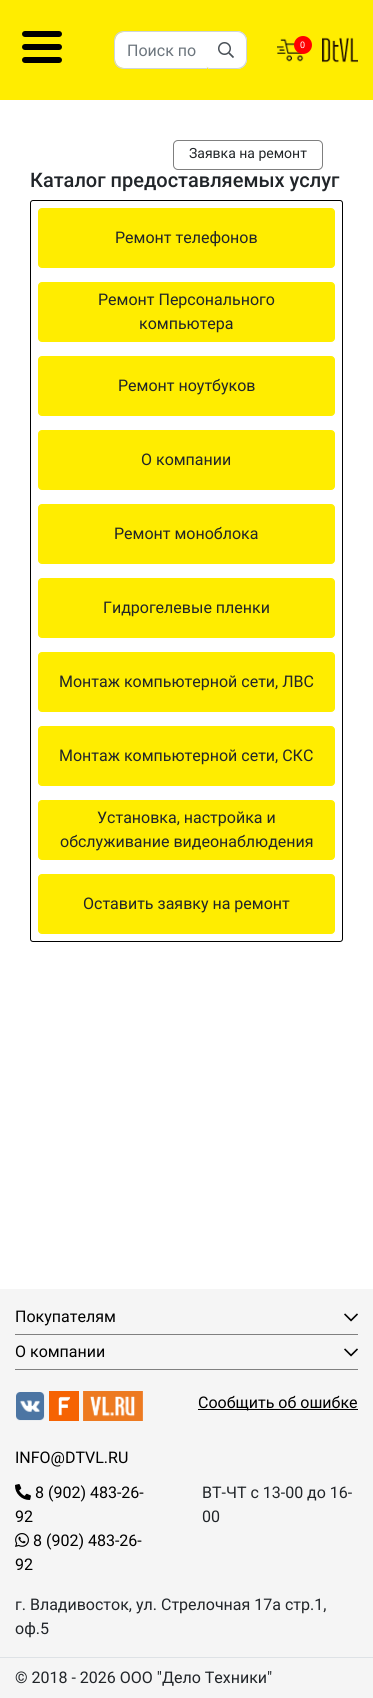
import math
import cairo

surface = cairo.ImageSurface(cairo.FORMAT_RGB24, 373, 1698)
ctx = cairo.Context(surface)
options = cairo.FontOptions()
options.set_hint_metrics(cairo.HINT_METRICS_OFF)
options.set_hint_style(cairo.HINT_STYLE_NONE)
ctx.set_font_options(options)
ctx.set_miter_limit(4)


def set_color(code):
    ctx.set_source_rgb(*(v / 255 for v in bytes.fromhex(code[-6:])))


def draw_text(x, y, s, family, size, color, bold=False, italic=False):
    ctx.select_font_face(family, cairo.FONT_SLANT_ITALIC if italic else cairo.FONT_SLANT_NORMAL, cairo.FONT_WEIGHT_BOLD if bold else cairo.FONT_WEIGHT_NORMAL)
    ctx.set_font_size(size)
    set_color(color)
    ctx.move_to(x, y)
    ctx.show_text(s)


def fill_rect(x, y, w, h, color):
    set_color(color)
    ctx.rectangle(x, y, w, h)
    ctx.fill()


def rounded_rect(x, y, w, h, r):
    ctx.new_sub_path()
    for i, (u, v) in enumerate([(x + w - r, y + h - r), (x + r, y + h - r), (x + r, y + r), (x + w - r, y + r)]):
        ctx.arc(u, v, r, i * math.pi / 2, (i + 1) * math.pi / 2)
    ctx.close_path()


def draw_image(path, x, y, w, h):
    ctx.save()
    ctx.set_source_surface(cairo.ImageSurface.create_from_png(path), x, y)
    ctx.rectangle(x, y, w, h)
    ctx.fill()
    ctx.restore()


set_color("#ffffff")
ctx.paint()
fill_rect(0, 0, 373, 100, "#ffed00")
set_color("#000000")
rounded_rect(22, 31, 40, 6, 3)
ctx.fill()
rounded_rect(22, 44, 40, 6, 3)
ctx.fill()
rounded_rect(22, 57, 40, 6, 3)
ctx.fill()
set_color("#ffffff")
ctx.new_path()
ctx.move_to(124, 32)
ctx.line_to(207, 32)
ctx.line_to(207, 68)
ctx.line_to(124, 68)
ctx.curve_to(119, 68, 115, 64, 115, 59)
ctx.line_to(115, 41)
ctx.curve_to(115, 36, 119, 32, 124, 32)
ctx.close_path()
ctx.fill()
set_color("#ced4da")
ctx.set_fill_rule(cairo.FILL_RULE_EVEN_ODD)
ctx.new_path()
ctx.move_to(124, 31)
ctx.line_to(207, 31)
ctx.line_to(207, 69)
ctx.line_to(124, 69)
ctx.curve_to(118, 69, 114, 65, 114, 59)
ctx.line_to(114, 41)
ctx.curve_to(114, 35, 118, 31, 124, 31)
ctx.close_path()
ctx.move_to(124, 32)
ctx.line_to(207, 32)
ctx.line_to(207, 68)
ctx.line_to(124, 68)
ctx.curve_to(119, 68, 115, 64, 115, 59)
ctx.line_to(115, 41)
ctx.curve_to(115, 36, 119, 32, 124, 32)
ctx.close_path()
ctx.fill()
draw_text(127, 56, "Поиск по", "Roboto", 16, "#6c757d")
set_color("#ffffff")
ctx.new_path()
ctx.move_to(206, 31)
ctx.line_to(237, 31)
ctx.curve_to(242.5, 31, 247, 35.5, 247, 41)
ctx.line_to(247, 59)
ctx.curve_to(247, 64.5, 242.5, 69, 237, 69)
ctx.line_to(210, 69)
ctx.curve_to(208, 69, 206, 67, 206, 65)
ctx.close_path()
ctx.fill()
set_color("#ced4da")
ctx.new_path()
ctx.move_to(206, 31)
ctx.line_to(237, 31)
ctx.curve_to(243, 31, 247, 35, 247, 41)
ctx.line_to(247, 59)
ctx.curve_to(247, 65, 243, 69, 237, 69)
ctx.line_to(210, 69)
ctx.curve_to(208, 69, 206, 67, 206, 65)
ctx.close_path()
ctx.move_to(206, 32)
ctx.line_to(237, 32)
ctx.curve_to(242, 32, 246, 36, 246, 41)
ctx.line_to(246, 59)
ctx.curve_to(246, 64, 242, 68, 237, 68)
ctx.line_to(210, 68)
ctx.curve_to(208, 68, 206, 67, 206, 65)
ctx.close_path()
ctx.fill()
draw_image("assets/img1.png", 218, 42, 16, 16)
draw_image("assets/img2.png", 277, 38, 27, 24)
set_color("#ff0000")
ctx.arc(303, 45, 9, 0, 2 * math.pi)
ctx.fill()
draw_text(300, 48, "0", "Roboto", 9, "#ffffff")
draw_image("assets/img3.png", 322, 37, 36, 26)
rounded_rect(173.5, 140.5, 149, 29, 4.5)
set_color("#7f7f7f")
ctx.set_line_width(1)
ctx.stroke()
draw_text(189, 158, "Заявка на ремонт", "Roboto", 14, "#212529")
draw_text(30, 187, "Каталог предоставляемых услуг", "Roboto Medium", 20, "#212529")
rounded_rect(30.5, 200.5, 312, 741, 2.5)
set_color("#000000")
ctx.stroke()
set_color("#ffed00")
rounded_rect(38.5, 208.5, 296, 59, 3.5)
ctx.fill_preserve()
ctx.stroke()
draw_text(115, 243, "Ремонт телефонов", "Roboto", 16, "#212529")
set_color("#ffed00")
rounded_rect(38.5, 282.5, 296, 59, 3.5)
ctx.fill_preserve()
ctx.stroke()
draw_text(98, 305, "Ремонт Персонального", "Roboto", 16, "#212529")
draw_text(139, 329, "компьютера", "Roboto", 16, "#212529")
set_color("#ffed00")
rounded_rect(38.5, 356.5, 296, 59, 3.5)
ctx.fill_preserve()
ctx.stroke()
draw_text(118, 391, "Ремонт ноутбуков", "Roboto", 16, "#212529")
set_color("#ffed00")
rounded_rect(38.5, 430.5, 296, 59, 3.5)
ctx.fill_preserve()
ctx.stroke()
draw_text(141, 465, "О компании", "Roboto", 16, "#212529")
set_color("#ffed00")
rounded_rect(38.5, 504.5, 296, 59, 3.5)
ctx.fill_preserve()
ctx.stroke()
draw_text(114, 539, "Ремонт моноблока", "Roboto", 16, "#212529")
set_color("#ffed00")
rounded_rect(38.5, 578.5, 296, 59, 3.5)
ctx.fill_preserve()
ctx.stroke()
draw_text(103, 613, "Гидрогелевые пленки", "Roboto", 16, "#212529")
set_color("#ffed00")
rounded_rect(38.5, 652.5, 296, 59, 3.5)
ctx.fill_preserve()
ctx.stroke()
draw_text(59, 687, "Монтаж компьютерной сети, ЛВС", "Roboto", 16, "#212529")
set_color("#ffed00")
rounded_rect(38.5, 726.5, 296, 59, 3.5)
ctx.fill_preserve()
ctx.stroke()
draw_text(59, 761, "Монтаж компьютерной сети, СКС", "Roboto", 16, "#212529")
set_color("#ffed00")
rounded_rect(38.5, 800.5, 296, 59, 3.5)
ctx.fill_preserve()
ctx.stroke()
draw_text(97, 823, "Установка, настройка и", "Roboto", 16, "#212529")
draw_text(60, 847, "обслуживание видеонаблюдения", "Roboto", 16, "#212529")
set_color("#ffed00")
rounded_rect(38.5, 874.5, 296, 59, 3.5)
ctx.fill_preserve()
ctx.stroke()
draw_text(83, 909, "Оставить заявку на ремонт", "Roboto", 16, "#212529")
fill_rect(0, 1289, 373, 409, "#f5f5f5")
fill_rect(15, 1334, 343, 1, "#808080")
draw_text(15, 1322, "Покупателям", "Roboto", 16, "#000000")
draw_image("assets/img4.png", 344, 1313, 14, 9)
fill_rect(15, 1369, 343, 1, "#808080")
draw_text(15, 1357, "О компании", "Roboto", 16, "#000000")
draw_image("assets/img4.png", 344, 1348, 14, 9)
draw_image("assets/img5.png", 16, 1392, 29, 29)
draw_image("assets/img6.png", 49, 1391, 30, 30)
draw_image("assets/img7.png", 83, 1391, 60, 30)
fill_rect(198, 1409, 160, 1, "#000000")
draw_text(198, 1408, "Сообщить об ошибке", "Roboto", 16, "#000000")
draw_text(15, 1463, "INFO@DTVL.RU", "Roboto", 16, "#000000")
draw_image("assets/img8.png", 15, 1484, 16, 16)
draw_text(35, 1498, "8 (902) 483-26-", "Roboto", 16, "#000000")
draw_text(15, 1522, "92", "Roboto", 16, "#000000")
draw_image("assets/img9.png", 15, 1533, 14, 14)
draw_text(33, 1546, "8 (902) 483-26-", "Roboto", 16, "#000000")
draw_text(15, 1570, "92", "Roboto", 16, "#000000")
draw_text(202, 1498, "ВТ-ЧТ с 13-00 до 16-", "Roboto", 16, "#212529")
draw_text(202, 1522, "00", "Roboto", 16, "#212529")
draw_text(15, 1610, "г. Владивосток, ул. Стрелочная 17а стр.1,", "Roboto", 16, "#212529")
draw_text(15, 1634, "оф.5", "Roboto", 16, "#212529")
fill_rect(0, 1657, 373, 1, "#dee2e6")
draw_text(15, 1683, "© 2018 - 2026 ООО \"Дело Техники\"", "Roboto", 16, "#212529")
surface.write_to_png("output.png")
